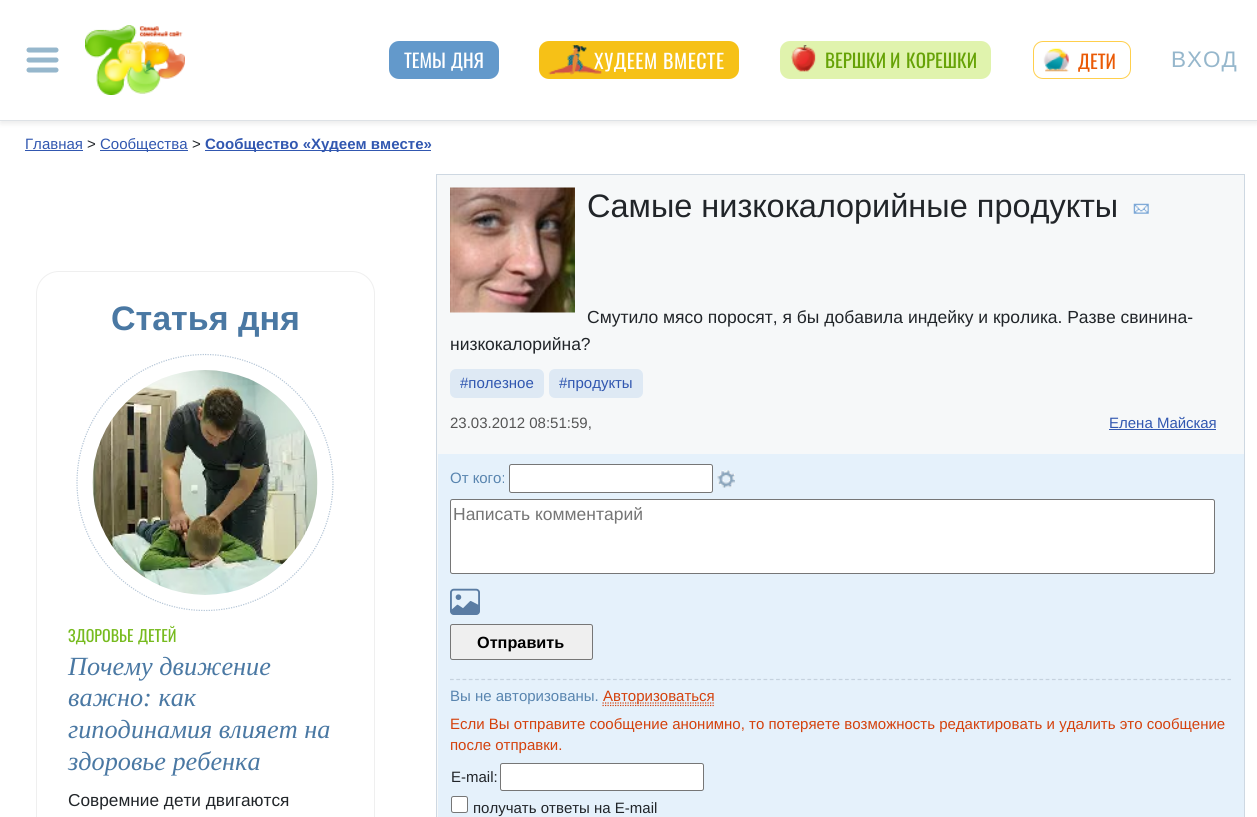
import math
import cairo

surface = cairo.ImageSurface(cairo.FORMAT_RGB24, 1257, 817)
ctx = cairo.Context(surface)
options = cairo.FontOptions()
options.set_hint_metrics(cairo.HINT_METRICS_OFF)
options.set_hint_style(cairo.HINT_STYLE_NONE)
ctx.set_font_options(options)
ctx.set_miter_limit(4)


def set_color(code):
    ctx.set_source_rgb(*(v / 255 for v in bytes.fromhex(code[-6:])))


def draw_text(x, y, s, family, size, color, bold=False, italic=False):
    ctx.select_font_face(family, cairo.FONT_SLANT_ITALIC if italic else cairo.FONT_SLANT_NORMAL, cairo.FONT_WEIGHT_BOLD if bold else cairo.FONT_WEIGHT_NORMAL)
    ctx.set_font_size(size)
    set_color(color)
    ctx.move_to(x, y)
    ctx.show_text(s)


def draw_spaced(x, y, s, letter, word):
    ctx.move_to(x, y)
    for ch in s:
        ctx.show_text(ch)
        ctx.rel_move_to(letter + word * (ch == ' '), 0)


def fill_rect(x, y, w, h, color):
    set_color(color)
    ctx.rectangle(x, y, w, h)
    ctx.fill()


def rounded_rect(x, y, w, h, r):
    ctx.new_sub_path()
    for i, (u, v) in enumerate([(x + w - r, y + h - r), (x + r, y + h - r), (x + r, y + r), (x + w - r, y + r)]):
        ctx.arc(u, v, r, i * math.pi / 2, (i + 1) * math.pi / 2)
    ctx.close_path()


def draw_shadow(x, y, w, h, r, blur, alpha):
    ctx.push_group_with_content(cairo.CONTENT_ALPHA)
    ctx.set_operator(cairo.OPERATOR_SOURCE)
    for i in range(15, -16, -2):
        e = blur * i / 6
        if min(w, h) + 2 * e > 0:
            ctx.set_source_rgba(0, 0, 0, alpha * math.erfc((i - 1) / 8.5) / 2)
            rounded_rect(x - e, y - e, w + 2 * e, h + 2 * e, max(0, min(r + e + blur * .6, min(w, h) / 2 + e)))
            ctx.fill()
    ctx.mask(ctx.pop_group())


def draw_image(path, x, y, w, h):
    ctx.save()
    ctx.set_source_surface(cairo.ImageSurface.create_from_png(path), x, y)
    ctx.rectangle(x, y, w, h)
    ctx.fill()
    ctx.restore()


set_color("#ffffff")
ctx.paint()
set_color("#000000")
draw_shadow(0, 3, 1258, 121, 0, 2.5, 0.07)
fill_rect(0, 0, 1257, 120, "#ffffff")
fill_rect(0, 120, 1257, 1, "#dee2e6")
ctx.new_path()
ctx.move_to(29, 50)
ctx.line_to(56, 50)
ctx.move_to(29, 60)
ctx.line_to(56, 60)
ctx.move_to(29, 70)
ctx.line_to(56, 70)
set_color("#96b7cc")
ctx.set_line_width(5)
ctx.set_line_cap(cairo.LINE_CAP_ROUND)
ctx.stroke()
draw_image("assets/img1.png", 85, 25, 100, 70)
set_color("#6399cb")
rounded_rect(389, 41, 110, 38, 10)
ctx.fill()
draw_text(404, 68, "ТЕМЫ", "Oswald", 19, "#ffffff")
draw_text(451, 68, "ДНЯ", "Oswald", 19, "#ffffff")
set_color("#f6c117")
rounded_rect(539, 41, 200, 38, 10)
ctx.fill()
ctx.set_font_size(20)
set_color("#ffffff")
draw_spaced(594, 69, "ХУДЕЕМ", 0.5, 0)
draw_image("assets/img2.png", 548, 45, 54, 30)
draw_spaced(663, 69, "ВМЕСТЕ", 0.5, 0)
set_color("#e0f3ad")
rounded_rect(780, 41, 211, 38, 10)
ctx.fill()
draw_image("assets/img3.png", 791, 45, 25, 27)
draw_text(825, 68, "ВЕРШКИ", "Oswald", 19, "#66a206")
draw_text(890, 68, "И", "Oswald", 19, "#66a206")
draw_text(906, 68, "КОРЕШКИ", "Oswald", 19, "#66a206")
rounded_rect(1033.5, 41.5, 97, 37, 9.5)
set_color("#ffcf4c")
ctx.set_line_width(1)
ctx.set_line_cap(cairo.LINE_CAP_BUTT)
ctx.stroke()
draw_image("assets/img4.png", 1043, 48, 26, 24)
draw_text(1078, 69, "ДЕТИ", "Oswald", 19, "#ea5a06")
ctx.select_font_face("Liberation Sans")
ctx.set_font_size(22.5)
set_color("#96b7cc")
draw_spaced(1171, 67, "ВХОД", 1, 0)
draw_text(25, 149, "Главная", "Liberation Sans", 15, "#3157b0")
fill_rect(25, 150, 58, 1, "#3157b0")
draw_text(87, 149, ">", "Liberation Sans", 15, "#212529")
fill_rect(100, 150, 88, 1, "#3157b0")
draw_text(100, 149, "Сообщества", "Liberation Sans", 15, "#3157b0")
draw_text(192, 149, ">", "Liberation Sans", 15, "#212529")
fill_rect(205, 150, 226, 1, "#3157b0")
draw_text(205, 149, "Сообщество «Худеем вместе»", "Liberation Sans", 15, "#3157b0", bold=True)
rounded_rect(36.5, 271.5, 338, 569, 22.5)
set_color("#efefef")
ctx.stroke()
draw_text(111, 330, "Статья дня", "Liberation Sans", 34, "#4a78a3", bold=True)
ctx.new_path()
ctx.move_to(205, 354.5)
ctx.curve_to(276, 354.5, 333, 411.5, 333, 482.5)
ctx.curve_to(333, 553.5, 276, 610.5, 205, 610.5)
ctx.curve_to(134, 610.5, 77, 553.5, 77, 482.5)
ctx.curve_to(77, 411.5, 134, 354.5, 205, 354.5)
ctx.close_path()
set_color("#b4c5d6")
ctx.set_line_width(1.2)
ctx.set_dash([1.25, 1.25])
ctx.stroke()
draw_image("assets/img5.png", 92, 370, 226, 225)
draw_text(68, 642, "ЗДОРОВЬЕ", "Oswald", 16, "#77bb1f")
draw_text(138, 642, "ДЕТЕЙ", "Oswald", 16, "#77bb1f")
draw_text(68, 675, "Почему движение", "Liberation Serif", 26.25, "#4a78a3", italic=True)
draw_text(68, 706, "важно: как", "Liberation Serif", 26.25, "#4a78a3", italic=True)
draw_text(68, 738, "гиподинамия влияет на", "Liberation Serif", 26.25, "#4a78a3", italic=True)
draw_text(68, 770, "здоровье ребенка", "Liberation Serif", 26.25, "#4a78a3", italic=True)
draw_text(68, 806, "Совремние дети двигаются", "Liberation Sans", 17.25, "#212529")
set_color("#f6f8f9")
ctx.rectangle(436.5, 174.5, 808, 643)
ctx.fill_preserve()
set_color("#ced8e2")
ctx.set_line_width(1)
ctx.set_dash([])
ctx.stroke()
draw_image("assets/img6.png", 450, 187, 125, 126)
draw_text(587, 217, "Самые низкокалорийные продукты", "Liberation Sans", 32.5, "#212529")
draw_image("assets/img7.png", 1133, 203, 16, 11)
draw_text(587, 323, "Смутило мясо поросят, я бы добавила индейку и кролика. Разве свинина-", "Liberation Sans", 17.5, "#212529")
draw_text(450, 350, "низкокалорийна?", "Liberation Sans", 17.5, "#212529")
set_color("#dee9f4")
rounded_rect(450, 369, 94, 29, 6)
ctx.fill()
draw_text(460, 388, "#полезное", "Liberation Sans", 15, "#3157b0")
set_color("#dee9f4")
rounded_rect(549, 369, 94, 29, 6)
ctx.fill()
draw_text(559, 388, "#продукты", "Liberation Sans", 15, "#3157b0")
draw_text(450, 428, "23.03.2012 08:51:59,", "Liberation Sans", 15, "#555555")
draw_text(1109, 428, "Елена Майская", "Liberation Sans", 15, "#3157b0")
fill_rect(1109, 429, 107, 1, "#3157b0")
fill_rect(438, 454, 806, 363, "#e5f1fb")
draw_text(450, 483, "От кого:", "Liberation Sans", 15, "#5985af")
set_color("#ffffff")
rounded_rect(509.5, 464.5, 203, 28, 2)
ctx.fill_preserve()
set_color("#767676")
ctx.stroke()
draw_image("assets/img8.png", 717, 470, 18, 18)
set_color("#ffffff")
rounded_rect(450.5, 499.5, 764, 74, 2)
ctx.fill_preserve()
set_color("#767676")
ctx.stroke()
draw_text(453, 520, "Написать комментарий", "Liberation Sans", 17.5, "#757575")
draw_image("assets/img9.png", 450, 588, 30, 27)
set_color("#efefef")
rounded_rect(450.5, 624.5, 142, 35, 2)
ctx.fill_preserve()
set_color("#767676")
ctx.stroke()
draw_text(477, 648, "Отправить", "Liberation Sans", 16.25, "#000000", bold=True)
ctx.new_path()
ctx.move_to(450, 679.5)
ctx.line_to(1231, 679.5)
set_color("#c5d2de")
ctx.set_line_width(1.2)
ctx.set_dash([3.75, 2.52])
ctx.stroke()
draw_text(450, 701, "Вы не авторизованы.", "Liberation Sans", 15, "#5985af")
ctx.new_path()
ctx.move_to(602.5, 705.5)
ctx.line_to(714, 705.5)
set_color("#d4410c")
ctx.set_dash([1.25, 1.25])
ctx.stroke()
ctx.new_path()
ctx.move_to(602.5, 703)
ctx.line_to(714.5, 703)
ctx.stroke()
draw_text(603, 701, "Авторизоваться", "Liberation Sans", 15, "#d4410c")
draw_text(450, 729, "Если Вы отправите сообщение анонимно, то потеряете возможность редактировать и удалить это сообщение", "Liberation Sans", 15, "#d4410c")
draw_text(450, 750, "после отправки.", "Liberation Sans", 15, "#d4410c")
draw_text(451, 782, "E-mail:", "Liberation Sans", 15, "#212529")
set_color("#ffffff")
rounded_rect(500.5, 763.5, 203, 27, 2)
ctx.fill_preserve()
set_color("#767676")
ctx.set_line_width(1)
ctx.set_dash([])
ctx.stroke()
set_color("#ffffff")
rounded_rect(451.5, 796.5, 16, 16, 2)
ctx.fill_preserve()
set_color("#767676")
ctx.stroke()
draw_text(473, 813, "получать ответы на E-mail", "Liberation Sans", 15, "#212529")
surface.write_to_png("output.png")
